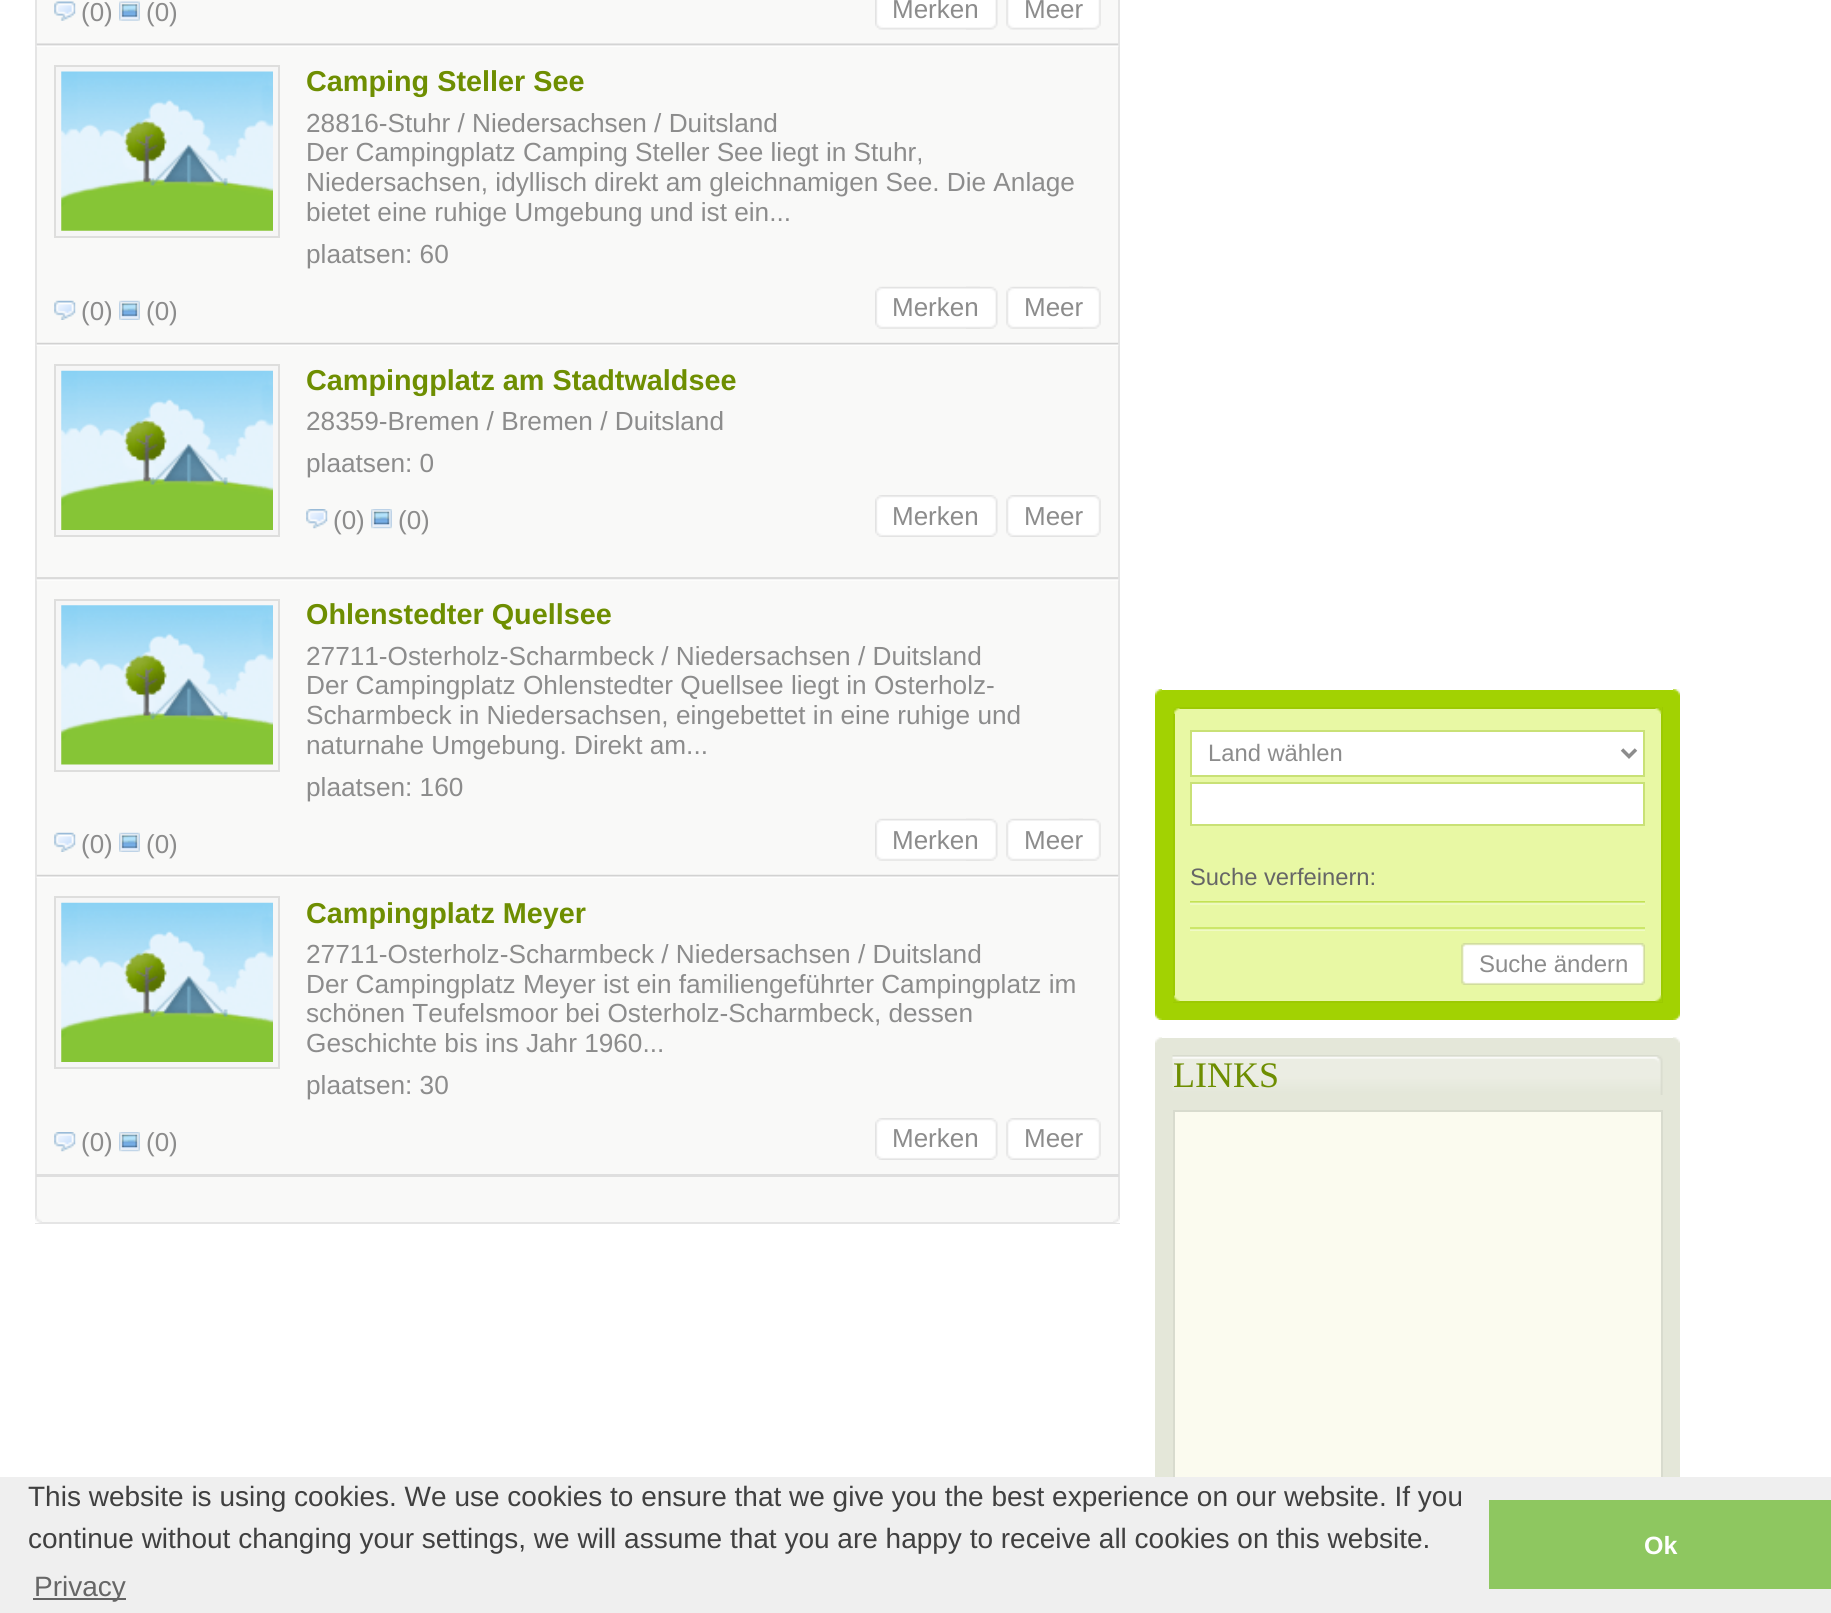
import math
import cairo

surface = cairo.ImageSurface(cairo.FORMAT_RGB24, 1831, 1613)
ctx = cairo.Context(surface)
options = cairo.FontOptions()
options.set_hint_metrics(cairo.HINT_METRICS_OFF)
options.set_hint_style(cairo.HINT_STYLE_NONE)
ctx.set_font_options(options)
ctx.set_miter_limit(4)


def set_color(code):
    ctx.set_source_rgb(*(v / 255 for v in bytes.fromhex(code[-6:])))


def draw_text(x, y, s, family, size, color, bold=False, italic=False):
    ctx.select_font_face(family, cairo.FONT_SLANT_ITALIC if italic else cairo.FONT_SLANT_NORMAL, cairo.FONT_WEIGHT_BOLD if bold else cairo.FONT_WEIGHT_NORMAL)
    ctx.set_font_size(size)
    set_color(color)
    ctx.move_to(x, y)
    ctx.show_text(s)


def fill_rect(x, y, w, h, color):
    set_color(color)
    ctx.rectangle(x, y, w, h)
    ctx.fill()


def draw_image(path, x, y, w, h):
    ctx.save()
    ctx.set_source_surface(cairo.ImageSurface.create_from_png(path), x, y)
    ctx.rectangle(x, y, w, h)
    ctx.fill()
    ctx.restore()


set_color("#ffffff")
ctx.paint()
fill_rect(37, 0, 1081, 44, "#f9f9f8")
fill_rect(1118, 0, 2, 1223, "#e5e5e5")
fill_rect(35, 0, 2, 1178, "#e5e5e5")
draw_image("assets/img1.png", 36, 43, 1083, 4)
draw_image("assets/img2.png", 54, 1, 22, 20)
draw_text(81, 21, "(0)", "Liberation Sans", 26, "#8c8c8c")
draw_image("assets/img3.png", 119, 1, 21, 20)
draw_text(146, 21, "(0)", "Liberation Sans", 26, "#8c8c8c")
draw_image("assets/img4.png", 966, 0, 32, 30)
draw_image("assets/img5.png", 875, 0, 105, 30)
draw_text(892, 18, "Merken", "Liberation Sans", 26, "#8c8c8c")
draw_image("assets/img6.png", 1069, 0, 32, 30)
draw_image("assets/img7.png", 1006, 0, 77, 30)
draw_text(1024, 18, "Meer", "Liberation Sans", 26, "#8c8c8c")
fill_rect(37, 47, 1081, 1175, "#f9f9f8")
draw_image("assets/img8.png", 36, 342, 1083, 4)
set_color("#f6f6f6")
ctx.rectangle(55, 66, 224, 171)
ctx.fill_preserve()
set_color("#dededd")
ctx.stroke()
draw_image("assets/img9.png", 61, 71, 212, 160)
draw_text(306, 91, "Camping Steller See", "Liberation Sans", 28.8, "#6e8e01", bold=True)
draw_text(306, 132, "28816-Stuhr / Niedersachsen / Duitsland", "Liberation Sans", 26.2, "#8c8c8c")
draw_text(306, 161, "Der Campingplatz Camping Steller See liegt in Stuhr,", "Liberation Sans", 26.2, "#8c8c8c")
draw_text(306, 191, "Niedersachsen, idyllisch direkt am gleichnamigen See. Die Anlage", "Liberation Sans", 26.2, "#8c8c8c")
draw_text(306, 221, "bietet eine ruhige Umgebung und ist ein...", "Liberation Sans", 26.2, "#8c8c8c")
draw_text(306, 263, "plaatsen: 60", "Liberation Sans", 26.2, "#8c8c8c")
draw_image("assets/img10.png", 54, 300, 22, 20)
draw_text(81, 320, "(0)", "Liberation Sans", 26, "#8c8c8c")
draw_image("assets/img11.png", 119, 300, 21, 20)
draw_text(146, 320, "(0)", "Liberation Sans", 26, "#8c8c8c")
draw_image("assets/img12.png", 966, 286, 32, 43)
draw_image("assets/img13.png", 875, 286, 105, 43)
draw_text(892, 316, "Merken", "Liberation Sans", 26, "#8c8c8c")
draw_image("assets/img14.png", 1069, 286, 32, 43)
draw_image("assets/img15.png", 1006, 286, 77, 43)
draw_text(1024, 316, "Meer", "Liberation Sans", 26, "#8c8c8c")
draw_image("assets/img16.png", 36, 577, 1083, 4)
set_color("#f6f6f6")
ctx.rectangle(55, 365, 224, 171)
ctx.fill_preserve()
set_color("#dededd")
ctx.stroke()
draw_image("assets/img17.png", 61, 370, 212, 160)
draw_text(306, 390, "Campingplatz am Stadtwaldsee", "Liberation Sans", 28.8, "#6e8e01", bold=True)
draw_text(306, 430, "28359-Bremen / Bremen / Duitsland", "Liberation Sans", 26.2, "#8c8c8c")
draw_text(306, 472, "plaatsen: 0", "Liberation Sans", 26.2, "#8c8c8c")
draw_image("assets/img18.png", 306, 509, 22, 20)
draw_text(333, 529, "(0)", "Liberation Sans", 26, "#8c8c8c")
draw_image("assets/img19.png", 371, 509, 21, 20)
draw_text(398, 529, "(0)", "Liberation Sans", 26, "#8c8c8c")
draw_image("assets/img20.png", 966, 495, 32, 42)
draw_image("assets/img21.png", 875, 495, 91, 42)
draw_text(892, 525, "Merken", "Liberation Sans", 26, "#8c8c8c")
draw_image("assets/img22.png", 1070, 495, 31, 42)
draw_image("assets/img23.png", 1006, 495, 64, 42)
draw_text(1024, 525, "Meer", "Liberation Sans", 26, "#8c8c8c")
draw_image("assets/img8.png", 36, 874, 1083, 4)
set_color("#f6f6f6")
ctx.rectangle(55, 600, 224, 171)
ctx.fill_preserve()
set_color("#dededd")
ctx.stroke()
draw_image("assets/img24.png", 61, 605, 212, 160)
draw_text(306, 624, "Ohlenstedter Quellsee", "Liberation Sans", 28.8, "#6e8e01", bold=True)
draw_text(306, 665, "27711-Osterholz-Scharmbeck / Niedersachsen / Duitsland", "Liberation Sans", 26.2, "#8c8c8c")
draw_text(306, 694, "Der Campingplatz Ohlenstedter Quellsee liegt in Osterholz-", "Liberation Sans", 26.2, "#8c8c8c")
draw_text(306, 724, "Scharmbeck in Niedersachsen, eingebettet in eine ruhige und", "Liberation Sans", 26.2, "#8c8c8c")
draw_text(306, 754, "naturnahe Umgebung. Direkt am...", "Liberation Sans", 26.2, "#8c8c8c")
draw_text(306, 796, "plaatsen: 160", "Liberation Sans", 26.2, "#8c8c8c")
draw_image("assets/img10.png", 54, 832, 22, 20)
draw_text(81, 853, "(0)", "Liberation Sans", 26, "#8c8c8c")
draw_image("assets/img11.png", 119, 832, 21, 20)
draw_text(146, 853, "(0)", "Liberation Sans", 26, "#8c8c8c")
draw_image("assets/img12.png", 966, 818, 32, 43)
draw_image("assets/img13.png", 875, 818, 105, 43)
draw_text(892, 849, "Merken", "Liberation Sans", 26, "#8c8c8c")
draw_image("assets/img14.png", 1069, 818, 32, 43)
draw_image("assets/img15.png", 1006, 818, 77, 43)
draw_text(1024, 849, "Meer", "Liberation Sans", 26, "#8c8c8c")
fill_rect(36, 1174, 1083, 3, "#dfdfdf")
set_color("#f6f6f6")
ctx.rectangle(55, 897, 224, 171)
ctx.fill_preserve()
set_color("#dededd")
ctx.stroke()
draw_image("assets/img17.png", 61, 902, 212, 160)
draw_text(306, 923, "Campingplatz Meyer", "Liberation Sans", 28.8, "#6e8e01", bold=True)
draw_text(306, 963, "27711-Osterholz-Scharmbeck / Niedersachsen / Duitsland", "Liberation Sans", 26.2, "#8c8c8c")
draw_text(306, 993, "Der Campingplatz Meyer ist ein familiengeführter Campingplatz im", "Liberation Sans", 26.2, "#8c8c8c")
draw_text(306, 1022, "schönen Teufelsmoor bei Osterholz-Scharmbeck, dessen", "Liberation Sans", 26.2, "#8c8c8c")
draw_text(306, 1052, "Geschichte bis ins Jahr 1960...", "Liberation Sans", 26.2, "#8c8c8c")
draw_text(306, 1094, "plaatsen: 30", "Liberation Sans", 26.2, "#8c8c8c")
draw_image("assets/img25.png", 54, 1132, 22, 20)
draw_text(81, 1151, "(0)", "Liberation Sans", 26, "#8c8c8c")
draw_image("assets/img19.png", 119, 1132, 21, 20)
draw_text(146, 1151, "(0)", "Liberation Sans", 26, "#8c8c8c")
draw_image("assets/img20.png", 966, 1118, 32, 42)
draw_image("assets/img21.png", 875, 1118, 91, 42)
draw_text(892, 1147, "Merken", "Liberation Sans", 26, "#8c8c8c")
draw_image("assets/img22.png", 1070, 1118, 31, 42)
draw_image("assets/img23.png", 1006, 1118, 64, 42)
draw_text(1024, 1147, "Meer", "Liberation Sans", 26, "#8c8c8c")
fill_rect(35, 1222, 1085, 2, "#e5e5e5")
fill_rect(35, 1178, 2, 45, "#e5e5e5")
draw_image("assets/img26.png", 35, 1216, 7, 7)
draw_image("assets/img27.png", 1113, 1216, 7, 7)
fill_rect(1155, 690, 525, 330, "#a2d202")
draw_image("assets/img28.png", 1155, 689, 7, 7)
draw_image("assets/img29.png", 1673, 689, 7, 7)
set_color("#e8f8a4")
ctx.rectangle(1174, 708, 488, 294)
ctx.fill_preserve()
set_color("#9cca01")
ctx.stroke()
draw_image("assets/img30.png", 1173, 707, 7, 7)
draw_image("assets/img31.png", 1655, 707, 7, 7)
draw_image("assets/img32.png", 1190, 927, 455, 4)
set_color("#ffffff")
ctx.rectangle(1191, 731, 453, 45)
ctx.fill_preserve()
set_color("#c9e176")
ctx.stroke()
ctx.new_path()
ctx.move_to(1622, 749.5)
ctx.line_to(1629, 756.5)
ctx.line_to(1636, 749.5)
set_color("#8c8c8c")
ctx.set_line_width(3.5)
ctx.stroke()
draw_text(1208, 761, "Land wählen", "Liberation Sans", 23.75, "#8c8c8c")
set_color("#ffffff")
ctx.rectangle(1191, 783, 453, 42)
ctx.fill_preserve()
set_color("#c9e176")
ctx.set_line_width(2)
ctx.stroke()
draw_image("assets/img33.png", 1190, 901, 455, 4)
draw_text(1190, 885, "Suche verfeinern:", "Liberation Sans", 23.75, "#666666")
draw_image("assets/img34.png", 1614, 943, 31, 42)
draw_image("assets/img35.png", 1461, 943, 153, 42)
draw_text(1479, 972, "Suche ändern", "Liberation Sans", 24, "#8c8c8c")
draw_image("assets/img36.png", 1173, 995, 7, 7)
draw_image("assets/img37.png", 1655, 995, 7, 7)
draw_image("assets/img38.png", 1155, 1013, 7, 7)
draw_image("assets/img39.png", 1673, 1013, 7, 7)
fill_rect(1155, 1038, 525, 439, "#e4e7d9")
draw_image("assets/img40.png", 1155, 1037, 7, 6)
draw_image("assets/img41.png", 1673, 1037, 7, 6)
draw_image("assets/img42.png", 1172, 1055, 491, 40)
draw_text(1173, 1087, "LINKS", "Liberation Serif", 36, "#6e8e01")
fill_rect(1175, 1112, 486, 365, "#fbfbef")
ctx.rectangle(1174, 1111, 488, 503)
set_color("#d8dbce")
ctx.stroke()
fill_rect(0, 1477, 1831, 136, "#efefef")
draw_text(28, 1506, "This website is using cookies. We use cookies to ensure that we give you the best experience on our website. If you", "Liberation Sans", 28, "#404040")
draw_text(28, 1548, "continue without changing your settings, we will assume that you are happy to receive all cookies on this website.", "Liberation Sans", 28, "#404040")
fill_rect(33, 1598, 93, 2, "#636363")
draw_text(34, 1596, "Privacy", "Liberation Sans", 28, "#666666")
fill_rect(1489, 1500, 342, 89, "#8ec760")
draw_text(1644, 1554, "Ok", "Liberation Sans", 25, "#ffffff", bold=True)
surface.write_to_png("output.png")
